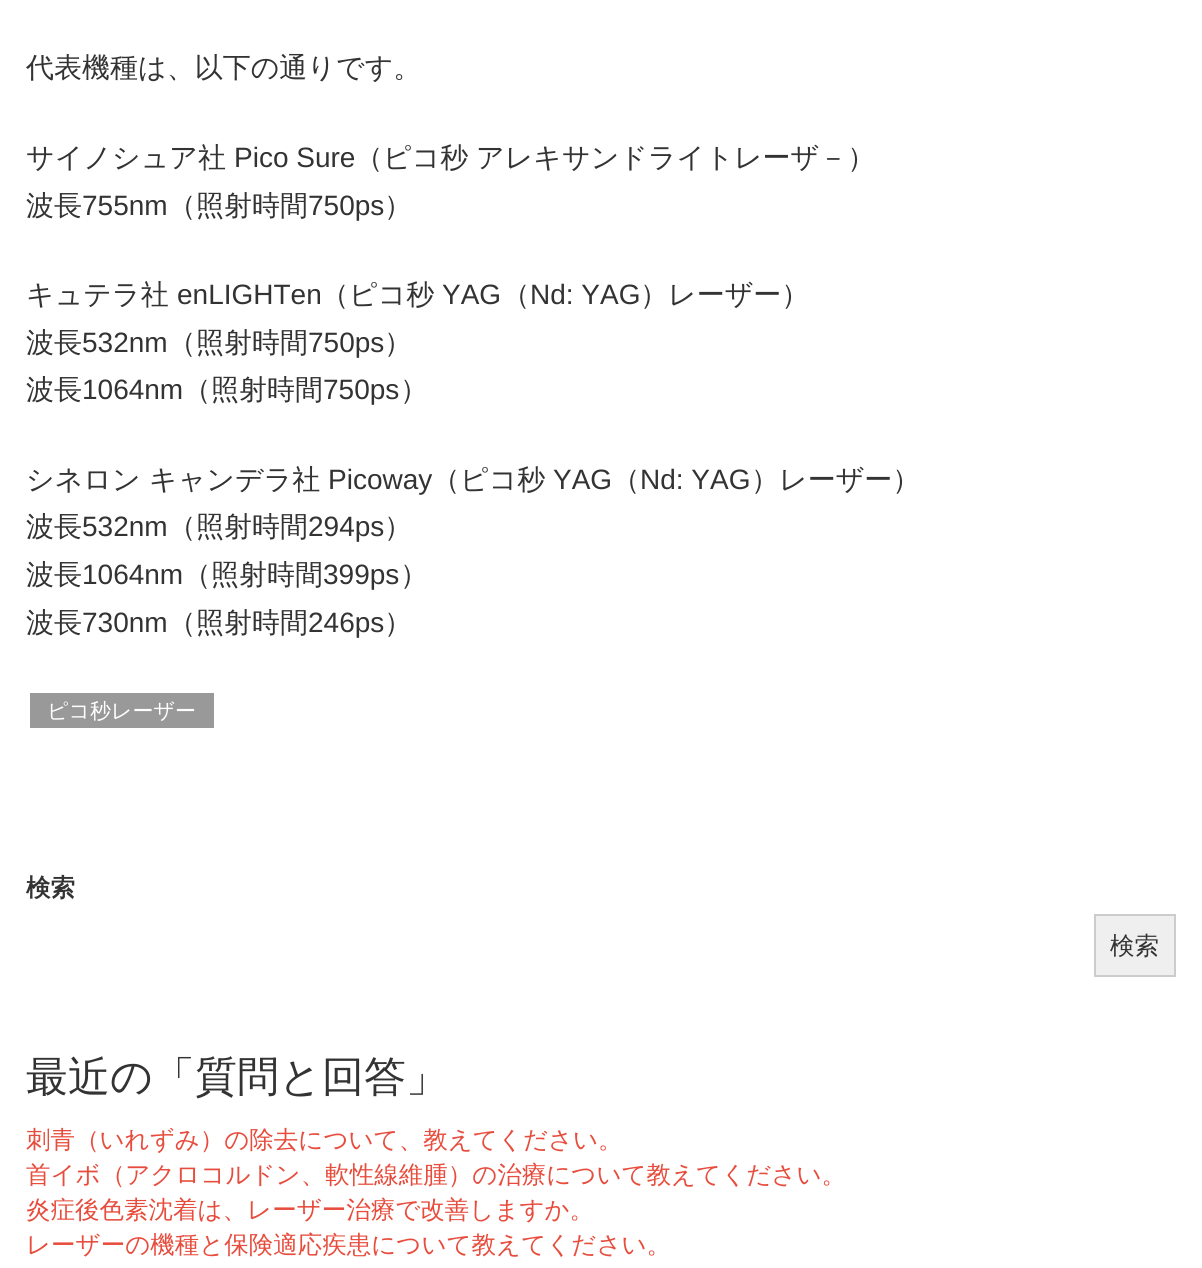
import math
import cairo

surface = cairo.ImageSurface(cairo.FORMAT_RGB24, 1202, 1268)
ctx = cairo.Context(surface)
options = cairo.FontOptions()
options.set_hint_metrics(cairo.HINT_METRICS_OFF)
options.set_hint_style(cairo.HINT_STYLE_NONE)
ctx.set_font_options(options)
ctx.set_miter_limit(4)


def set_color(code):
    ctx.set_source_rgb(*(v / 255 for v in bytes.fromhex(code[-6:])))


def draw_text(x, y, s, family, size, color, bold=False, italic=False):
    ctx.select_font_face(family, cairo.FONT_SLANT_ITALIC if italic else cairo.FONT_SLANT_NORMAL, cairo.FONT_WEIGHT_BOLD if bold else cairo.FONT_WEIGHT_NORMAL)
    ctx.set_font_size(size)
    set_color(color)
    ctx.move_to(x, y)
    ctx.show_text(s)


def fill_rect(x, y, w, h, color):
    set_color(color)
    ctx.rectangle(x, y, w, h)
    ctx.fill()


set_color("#ffffff")
ctx.paint()
draw_text(26, 77, "代表機種は、以下の通りです。", "WenQuanYi Zen Hei Medium", 28, "#333333")
draw_text(26, 167, "サイノシュア社", "WenQuanYi Zen Hei Medium", 28, "#333333")
draw_text(234, 167, "Pico Sure", "Liberation Sans", 28, "#333333")
draw_text(355, 167, "（ピコ秒", "WenQuanYi Zen Hei Medium", 28, "#333333")
draw_text(476, 167, "アレキサンドライトレーザ－）", "WenQuanYi Zen Hei Medium", 28, "#333333")
draw_text(26, 215, "波長", "WenQuanYi Zen Hei Medium", 28, "#333333")
draw_text(82, 215, "755nm", "Liberation Sans", 28, "#333333")
draw_text(168, 215, "（照射時間", "WenQuanYi Zen Hei Medium", 28, "#333333")
draw_text(308, 215, "750ps", "Liberation Sans", 28, "#333333")
draw_text(384, 215, "）", "WenQuanYi Zen Hei Medium", 28, "#333333")
draw_text(26, 304, "キュテラ社", "WenQuanYi Zen Hei Medium", 28, "#333333")
draw_text(177, 304, "enLIGHTen", "Liberation Sans", 28, "#333333")
draw_text(321, 304, "（ピコ秒", "WenQuanYi Zen Hei Medium", 28, "#333333")
draw_text(442, 304, "YAG", "Liberation Sans", 28, "#333333")
draw_text(502, 304, "（", "WenQuanYi Zen Hei Medium", 28, "#333333")
draw_text(530, 304, "Nd: YAG", "Liberation Sans", 28, "#333333")
draw_text(640, 304, "）レーザー）", "WenQuanYi Zen Hei Medium", 28, "#333333")
draw_text(26, 352, "波長", "WenQuanYi Zen Hei Medium", 28, "#333333")
draw_text(82, 352, "532nm", "Liberation Sans", 28, "#333333")
draw_text(168, 352, "（照射時間", "WenQuanYi Zen Hei Medium", 28, "#333333")
draw_text(308, 352, "750ps", "Liberation Sans", 28, "#333333")
draw_text(384, 352, "）", "WenQuanYi Zen Hei Medium", 28, "#333333")
draw_text(26, 399, "波長", "WenQuanYi Zen Hei Medium", 28, "#333333")
draw_text(82, 399, "1064nm", "Liberation Sans", 28, "#333333")
draw_text(183, 399, "（照射時間", "WenQuanYi Zen Hei Medium", 28, "#333333")
draw_text(323, 399, "750ps", "Liberation Sans", 28, "#333333")
draw_text(400, 399, "）", "WenQuanYi Zen Hei Medium", 28, "#333333")
draw_text(26, 489, "シネロン", "WenQuanYi Zen Hei Medium", 28, "#333333")
draw_text(149, 489, "キャンデラ社", "WenQuanYi Zen Hei Medium", 28, "#333333")
draw_text(328, 489, "Picoway", "Liberation Sans", 28, "#333333")
draw_text(432, 489, "（ピコ秒", "WenQuanYi Zen Hei Medium", 28, "#333333")
draw_text(553, 489, "YAG", "Liberation Sans", 28, "#333333")
draw_text(612, 489, "（", "WenQuanYi Zen Hei Medium", 28, "#333333")
draw_text(640, 489, "Nd: YAG", "Liberation Sans", 28, "#333333")
draw_text(751, 489, "）レーザー）", "WenQuanYi Zen Hei Medium", 28, "#333333")
draw_text(26, 536, "波長", "WenQuanYi Zen Hei Medium", 28, "#333333")
draw_text(82, 536, "532nm", "Liberation Sans", 28, "#333333")
draw_text(168, 536, "（照射時間", "WenQuanYi Zen Hei Medium", 28, "#333333")
draw_text(308, 536, "294ps", "Liberation Sans", 28, "#333333")
draw_text(384, 536, "）", "WenQuanYi Zen Hei Medium", 28, "#333333")
draw_text(26, 584, "波長", "WenQuanYi Zen Hei Medium", 28, "#333333")
draw_text(82, 584, "1064nm", "Liberation Sans", 28, "#333333")
draw_text(183, 584, "（照射時間", "WenQuanYi Zen Hei Medium", 28, "#333333")
draw_text(323, 584, "399ps", "Liberation Sans", 28, "#333333")
draw_text(400, 584, "）", "WenQuanYi Zen Hei Medium", 28, "#333333")
draw_text(26, 632, "波長", "WenQuanYi Zen Hei Medium", 28, "#333333")
draw_text(82, 632, "730nm", "Liberation Sans", 28, "#333333")
draw_text(168, 632, "（照射時間", "WenQuanYi Zen Hei Medium", 28, "#333333")
draw_text(308, 632, "246ps", "Liberation Sans", 28, "#333333")
draw_text(384, 632, "）", "WenQuanYi Zen Hei Medium", 28, "#333333")
fill_rect(30, 693, 184, 35, "#999999")
draw_text(47, 718, "ピコ秒レーザー", "WenQuanYi Zen Hei Medium", 21, "#ffffff")
draw_text(26, 896, "検索", "WenQuanYi Zen Hei", 24.5, "#333333", bold=True)
set_color("#efefef")
ctx.rectangle(1095, 915, 80, 61)
ctx.fill_preserve()
set_color("#cccccc")
ctx.stroke()
draw_text(1110, 954, "検索", "WenQuanYi Zen Hei Medium", 24.5, "#333333")
draw_text(26, 1091, "最近の「質問と回答」", "WenQuanYi Zen Hei Medium", 42, "#333333")
draw_text(26, 1148, "刺青（いれずみ）の除去について、教えてください。", "WenQuanYi Zen Hei Medium", 24.5, "#e74c3c")
draw_text(26, 1183, "首イボ（アクロコルドン、軟性線維腫）の治療について教えてください。", "WenQuanYi Zen Hei Medium", 24.5, "#e74c3c")
draw_text(26, 1218, "炎症後色素沈着は、レーザー治療で改善しますか。", "WenQuanYi Zen Hei Medium", 24.5, "#e74c3c")
draw_text(26, 1253, "レーザーの機種と保険適応疾患について教えてください。", "WenQuanYi Zen Hei Medium", 24.5, "#e74c3c")
surface.write_to_png("output.png")
